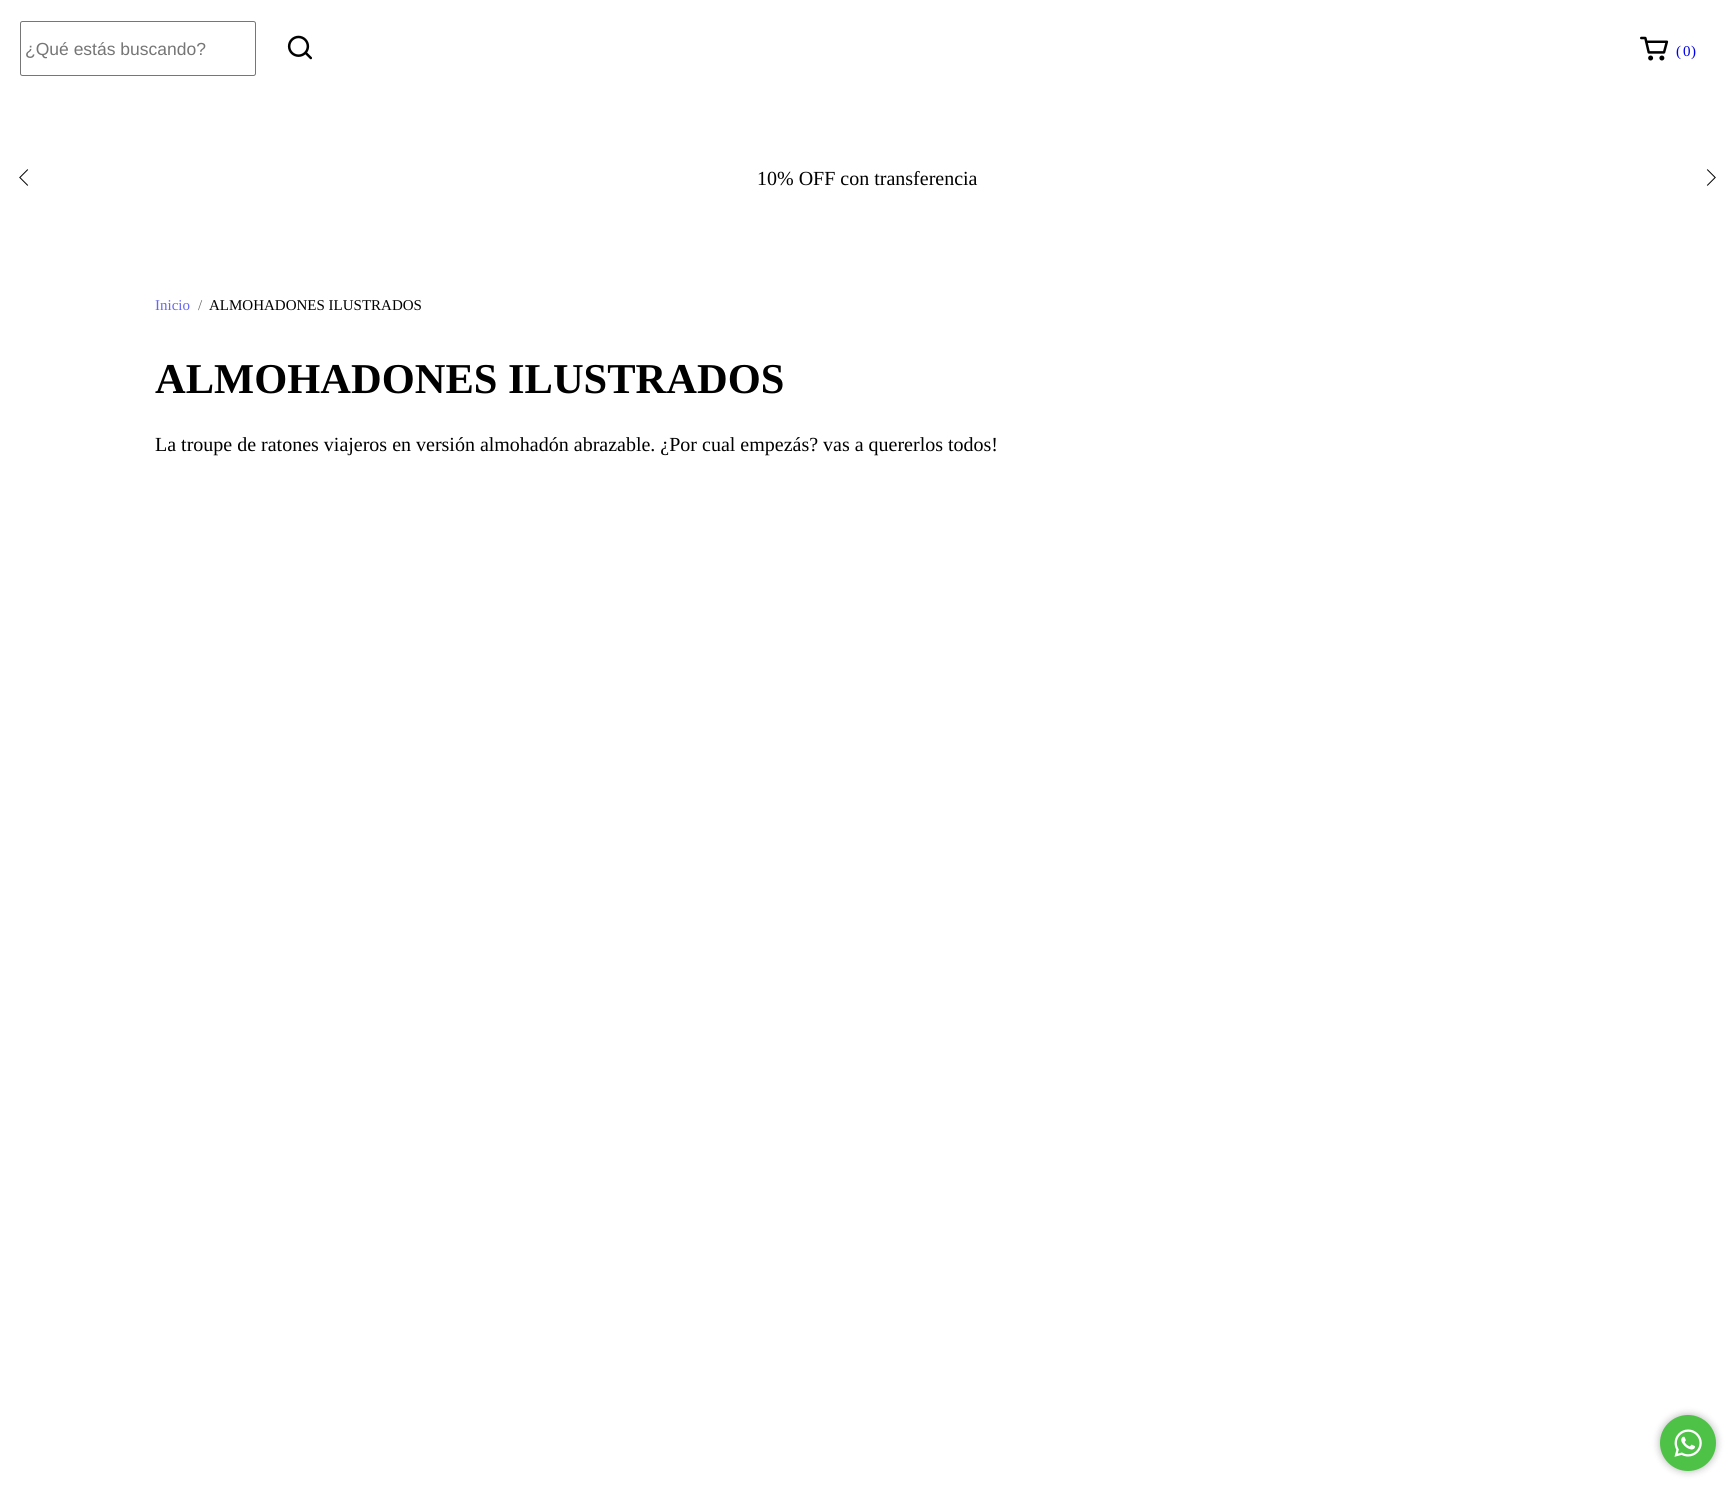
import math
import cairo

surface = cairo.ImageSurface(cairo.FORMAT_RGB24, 1734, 1489)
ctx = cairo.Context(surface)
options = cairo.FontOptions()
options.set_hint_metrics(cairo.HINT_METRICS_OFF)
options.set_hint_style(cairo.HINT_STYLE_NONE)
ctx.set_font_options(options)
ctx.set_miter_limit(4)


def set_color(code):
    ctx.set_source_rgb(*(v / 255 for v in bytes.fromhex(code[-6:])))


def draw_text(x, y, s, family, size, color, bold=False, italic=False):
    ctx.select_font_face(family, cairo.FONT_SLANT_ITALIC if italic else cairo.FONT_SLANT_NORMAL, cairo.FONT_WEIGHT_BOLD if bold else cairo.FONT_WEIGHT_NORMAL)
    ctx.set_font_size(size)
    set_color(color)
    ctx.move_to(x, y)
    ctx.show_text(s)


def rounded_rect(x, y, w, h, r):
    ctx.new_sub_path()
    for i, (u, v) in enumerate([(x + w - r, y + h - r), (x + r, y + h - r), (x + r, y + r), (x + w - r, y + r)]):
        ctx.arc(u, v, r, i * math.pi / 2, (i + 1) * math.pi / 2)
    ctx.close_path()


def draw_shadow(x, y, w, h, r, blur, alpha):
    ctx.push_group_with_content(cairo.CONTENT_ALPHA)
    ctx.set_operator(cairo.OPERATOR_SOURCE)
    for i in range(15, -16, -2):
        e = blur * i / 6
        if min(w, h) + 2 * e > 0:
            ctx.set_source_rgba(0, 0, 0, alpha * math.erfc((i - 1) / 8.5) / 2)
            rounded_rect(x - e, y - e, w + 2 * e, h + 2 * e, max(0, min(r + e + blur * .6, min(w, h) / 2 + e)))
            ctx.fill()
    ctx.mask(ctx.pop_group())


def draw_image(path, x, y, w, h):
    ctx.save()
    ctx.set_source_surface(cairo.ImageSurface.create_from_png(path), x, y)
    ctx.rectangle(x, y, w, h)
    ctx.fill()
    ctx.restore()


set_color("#ffffff")
ctx.paint()
rounded_rect(20.5, 21.5, 235, 54, 2)
set_color("#767676")
ctx.set_line_width(1)
ctx.stroke()
draw_text(25, 55, "¿Qué estás buscando?", "Liberation Sans", 17.5, "#757575")
draw_image("assets/img1.png", 287, 35, 25, 25)
draw_image("assets/img2.png", 1640, 36, 29, 25)
draw_text(1676, 56, "(", "Liberation Serif", 15, "#0000ee")
draw_text(1683, 56, "0", "Liberation Serif", 15, "#0000ee")
draw_text(1691, 56, ")", "Liberation Serif", 15, "#0000ee")
draw_image("assets/img3.png", 19, 169, 10, 17)
draw_text(757, 185, "10% OFF con transferencia", "Liberation Serif", 20, "#000000")
draw_image("assets/img4.png", 1706, 169, 10, 17)
draw_text(155, 310, "Inicio", "Liberation Serif", 15, "#6666f5")
draw_text(198, 310, "/", "Liberation Serif", 15, "#666666")
draw_text(209, 310, "ALMOHADONES ILUSTRADOS", "Liberation Serif", 15, "#000000")
draw_text(155, 393, "ALMOHADONES ILUSTRADOS", "Liberation Serif", 42.5, "#000000", bold=True)
draw_text(155, 451, "La troupe de ratones viajeros en versión almohadón abrazable. ¿Por cual empezás? vas a quererlos todos!", "Liberation Serif", 20, "#000000")
set_color("#000000")
draw_shadow(1660, 1415, 56, 56, 28, 4, 0.3)
set_color("#4dc247")
ctx.arc(1688, 1443, 28, 0, 2 * math.pi)
ctx.fill()
draw_image("assets/img5.png", 1674, 1429, 28, 28)
surface.write_to_png("output.png")
